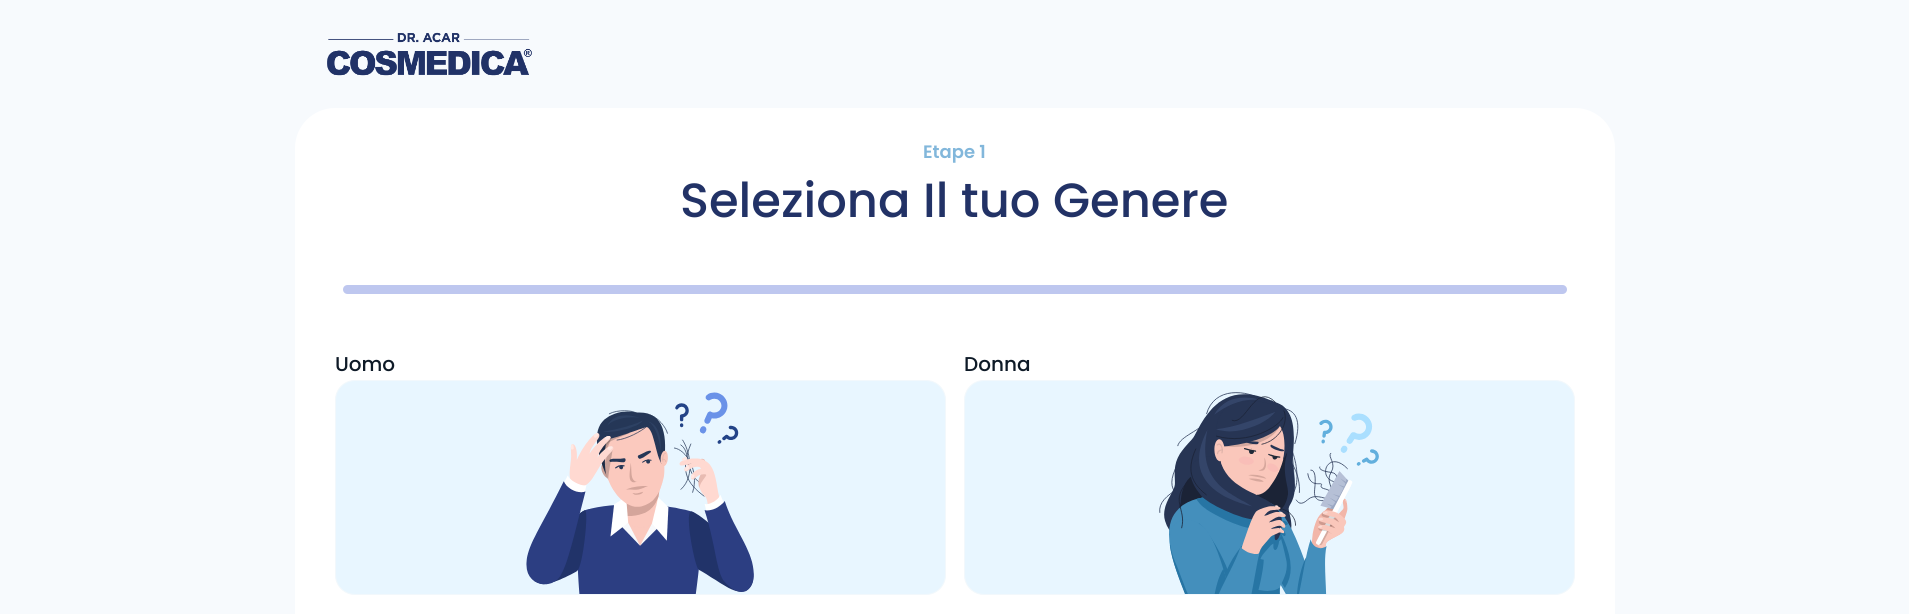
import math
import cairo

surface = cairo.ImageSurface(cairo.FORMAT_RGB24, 1909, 614)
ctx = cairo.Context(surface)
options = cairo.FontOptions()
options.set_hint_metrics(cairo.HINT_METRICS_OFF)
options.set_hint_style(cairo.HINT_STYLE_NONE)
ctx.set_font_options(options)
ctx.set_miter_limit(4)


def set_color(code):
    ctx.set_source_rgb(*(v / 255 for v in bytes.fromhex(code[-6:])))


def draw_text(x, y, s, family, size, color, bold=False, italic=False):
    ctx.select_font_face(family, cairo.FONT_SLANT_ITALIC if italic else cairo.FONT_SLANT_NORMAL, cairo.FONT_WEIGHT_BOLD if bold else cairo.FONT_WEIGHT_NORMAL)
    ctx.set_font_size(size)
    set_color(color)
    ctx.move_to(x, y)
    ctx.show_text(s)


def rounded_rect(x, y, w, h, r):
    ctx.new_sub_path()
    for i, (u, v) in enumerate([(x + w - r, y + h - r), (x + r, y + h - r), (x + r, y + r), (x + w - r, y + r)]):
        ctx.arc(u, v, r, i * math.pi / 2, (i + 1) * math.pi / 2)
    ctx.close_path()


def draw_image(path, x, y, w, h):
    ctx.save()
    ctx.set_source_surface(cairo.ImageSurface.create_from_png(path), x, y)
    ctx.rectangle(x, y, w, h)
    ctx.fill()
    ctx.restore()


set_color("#f7fafd")
ctx.paint()
draw_image("assets/img1.png", 327, 32, 205, 44)
set_color("#ffffff")
ctx.new_path()
ctx.move_to(335, 108)
ctx.line_to(1575, 108)
ctx.curve_to(1597, 108, 1615, 126, 1615, 148)
ctx.line_to(1615, 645)
ctx.line_to(295, 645)
ctx.line_to(295, 148)
ctx.curve_to(295, 126, 313, 108, 335, 108)
ctx.close_path()
ctx.fill()
draw_text(923, 158, "Etape 1", "Poppins SemiBold", 18, "#82b7db")
draw_text(680, 217, "Seleziona Il tuo Genere", "Poppins Medium", 48, "#223266")
set_color("#bec7ef")
rounded_rect(343, 285, 1224, 9, 4.5)
ctx.fill()
draw_text(335, 371, "Uomo", "Poppins Medium", 20, "#0e1a27")
set_color("#e8f6ff")
rounded_rect(335.5, 380.5, 610, 214, 19.5)
ctx.fill_preserve()
set_color("#f2f8fc")
ctx.set_line_width(1)
ctx.stroke()
draw_image("assets/img2.png", 526, 392, 228, 202)
draw_text(964, 371, "Donna", "Poppins Medium", 20, "#0e1a27")
set_color("#e8f6ff")
rounded_rect(964.5, 380.5, 610, 214, 19.5)
ctx.fill_preserve()
set_color("#f2f8fc")
ctx.stroke()
draw_image("assets/img3.png", 1159, 392, 220, 202)
surface.write_to_png("output.png")
